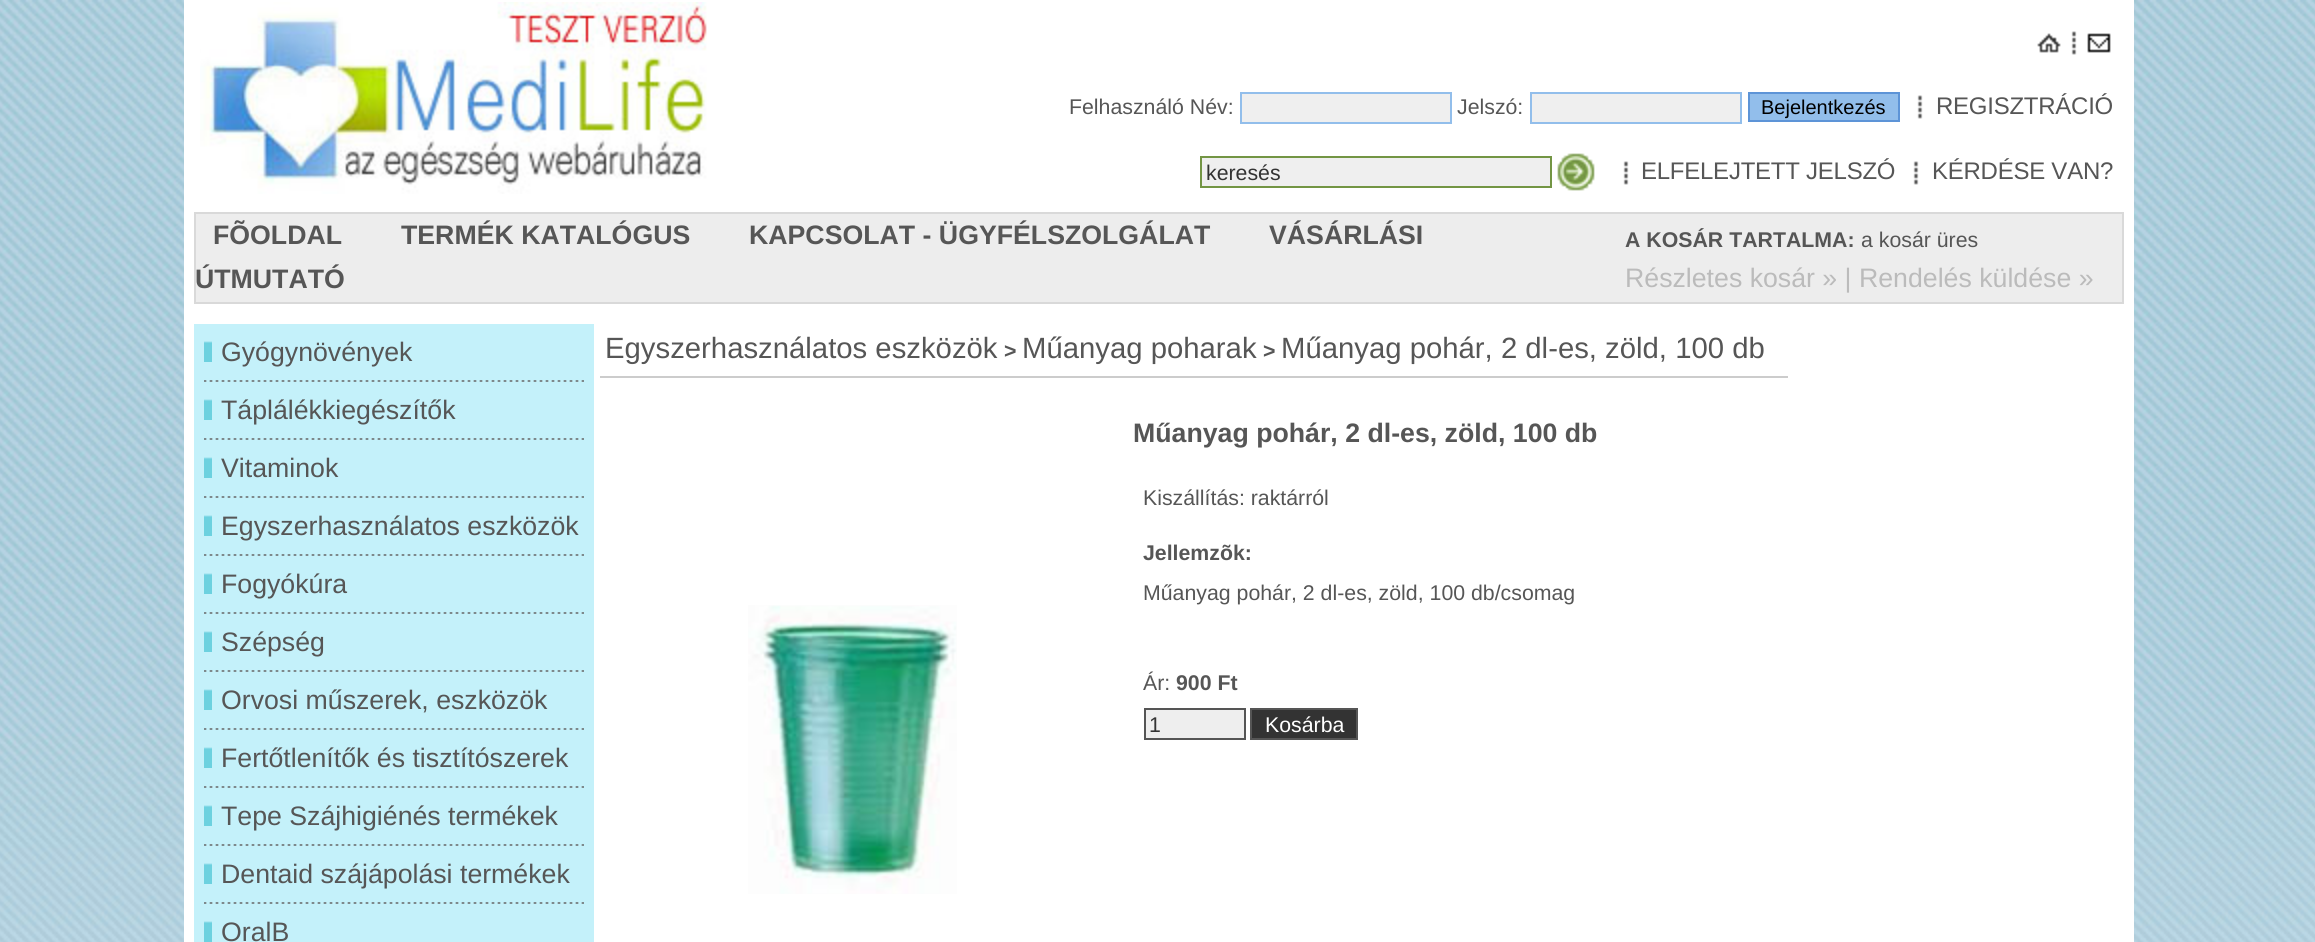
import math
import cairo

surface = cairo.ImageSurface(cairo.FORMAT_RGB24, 2315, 942)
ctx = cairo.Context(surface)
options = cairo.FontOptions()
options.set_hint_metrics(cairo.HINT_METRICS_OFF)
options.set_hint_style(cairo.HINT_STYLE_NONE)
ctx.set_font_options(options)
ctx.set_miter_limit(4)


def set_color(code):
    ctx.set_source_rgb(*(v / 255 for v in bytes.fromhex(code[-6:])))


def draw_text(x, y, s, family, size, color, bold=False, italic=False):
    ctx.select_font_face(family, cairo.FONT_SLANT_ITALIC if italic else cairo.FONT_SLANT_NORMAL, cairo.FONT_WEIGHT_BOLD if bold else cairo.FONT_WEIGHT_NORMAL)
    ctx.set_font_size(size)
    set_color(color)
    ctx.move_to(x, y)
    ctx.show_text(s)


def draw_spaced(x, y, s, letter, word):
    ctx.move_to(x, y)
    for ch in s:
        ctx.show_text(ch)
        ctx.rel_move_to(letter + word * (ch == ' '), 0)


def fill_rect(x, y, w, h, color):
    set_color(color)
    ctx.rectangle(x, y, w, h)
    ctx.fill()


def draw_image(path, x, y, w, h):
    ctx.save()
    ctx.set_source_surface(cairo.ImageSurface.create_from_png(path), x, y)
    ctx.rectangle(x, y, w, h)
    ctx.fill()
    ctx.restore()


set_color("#ffffff")
ctx.paint()
draw_image("assets/img1.png", 0, 0, 2315, 942)
fill_rect(184, 0, 1950, 942, "#ffffff")
draw_image("assets/img2.png", 200, 2, 507, 192)
draw_image("assets/img3.png", 2037, 33, 24, 20)
draw_image("assets/img4.png", 2071, 31, 6, 24)
draw_image("assets/img5.png", 2087, 33, 24, 20)
draw_text(1069, 114, "Felhasználó Név:", "Liberation Sans", 21.3, "#565656")
set_color("#efefef")
ctx.rectangle(1241, 93, 210, 30)
ctx.fill_preserve()
set_color("#92beeb")
ctx.stroke()
draw_text(1457, 114, "Jelszó:", "Liberation Sans", 21.3, "#565656")
set_color("#efefef")
ctx.rectangle(1531, 93, 210, 30)
ctx.fill_preserve()
set_color("#92beeb")
ctx.stroke()
ctx.rectangle(1749, 93, 150, 28)
ctx.fill_preserve()
set_color("#5d94d7")
ctx.stroke()
draw_text(1761, 114, "Bejelentkezés", "Liberation Sans", 20, "#000000")
draw_image("assets/img4.png", 1917, 95, 6, 24)
ctx.set_font_size(24)
set_color("#565656")
draw_spaced(1936, 114, "REGISZTRÁCIÓ", -0.25, 0)
set_color("#efefef")
ctx.rectangle(1201, 157, 350, 30)
ctx.fill_preserve()
set_color("#739544")
ctx.stroke()
draw_text(1206, 180, "keresés", "Liberation Sans", 21.3, "#333333")
draw_image("assets/img6.png", 1557, 153, 38, 38)
draw_image("assets/img4.png", 1623, 161, 6, 24)
ctx.set_font_size(24)
set_color("#565656")
draw_spaced(1641, 179, "ELFELEJTETT JELSZÓ", -0.25, 0)
draw_image("assets/img4.png", 1913, 161, 6, 24)
draw_spaced(1932, 179, "KÉRDÉSE VAN?", -0.25, 0)
set_color("#ededed")
ctx.rectangle(195, 213, 1928, 90)
ctx.fill_preserve()
set_color("#d9d9d9")
ctx.stroke()
draw_text(213, 244, "FÕOLDAL", "Liberation Sans", 26.7, "#565656", bold=True)
draw_text(401, 244, "TERMÉK KATALÓGUS", "Liberation Sans", 26.7, "#565656", bold=True)
draw_text(749, 244, "KAPCSOLAT - ÜGYFÉLSZOLGÁLAT", "Liberation Sans", 26.7, "#565656", bold=True)
draw_text(1269, 244, "VÁSÁRLÁSI", "Liberation Sans", 26.7, "#565656", bold=True)
draw_text(195, 288, "ÚTMUTATÓ", "Liberation Sans", 26.7, "#565656", bold=True)
draw_text(1625, 247, "A KOSÁR TARTALMA:", "Liberation Sans", 21.3, "#565656", bold=True)
draw_text(1861, 247, "a kosár üres", "Liberation Sans", 21.3, "#565656")
draw_text(1625, 287, "Részletes kosár » | Rendelés küldése »", "Liberation Sans", 26.7, "#bbbbbb")
fill_rect(194, 324, 400, 618, "#c4f1fa")
draw_image("assets/img7.png", 204, 341, 8, 21)
draw_text(221, 361, "Gyógynövények", "Liberation Sans", 26.7, "#565656")
draw_image("assets/img8.png", 204, 380, 380, 2)
draw_image("assets/img7.png", 204, 399, 8, 21)
draw_text(221, 419, "Táplálékkiegészítők", "Liberation Sans", 26.7, "#565656")
draw_image("assets/img8.png", 204, 438, 380, 2)
draw_image("assets/img7.png", 204, 457, 8, 21)
draw_text(221, 477, "Vitaminok", "Liberation Sans", 26.7, "#565656")
draw_image("assets/img8.png", 204, 496, 380, 2)
draw_image("assets/img7.png", 204, 515, 8, 21)
draw_text(221, 535, "Egyszerhasználatos eszközök", "Liberation Sans", 26.7, "#565656")
draw_image("assets/img8.png", 204, 554, 380, 2)
draw_image("assets/img7.png", 204, 573, 8, 21)
draw_text(221, 593, "Fogyókúra", "Liberation Sans", 26.7, "#565656")
draw_image("assets/img8.png", 204, 612, 380, 2)
draw_image("assets/img7.png", 204, 631, 8, 21)
draw_text(221, 651, "Szépség", "Liberation Sans", 26.7, "#565656")
draw_image("assets/img8.png", 204, 670, 380, 2)
draw_image("assets/img7.png", 204, 689, 8, 21)
draw_text(221, 709, "Orvosi műszerek, eszközök", "Liberation Sans", 26.7, "#565656")
draw_image("assets/img8.png", 204, 728, 380, 2)
draw_image("assets/img7.png", 204, 747, 8, 21)
draw_text(221, 767, "Fertőtlenítők és tisztítószerek", "Liberation Sans", 26.7, "#565656")
draw_image("assets/img8.png", 204, 786, 380, 2)
draw_image("assets/img7.png", 204, 805, 8, 21)
draw_text(221, 825, "Tepe Szájhigiénés termékek", "Liberation Sans", 26.7, "#565656")
draw_image("assets/img8.png", 204, 844, 380, 2)
draw_image("assets/img7.png", 204, 863, 8, 21)
draw_text(221, 883, "Dentaid szájápolási termékek", "Liberation Sans", 26.7, "#565656")
draw_image("assets/img8.png", 204, 902, 380, 2)
draw_image("assets/img7.png", 204, 921, 8, 21)
draw_text(221, 941, "OralB", "Liberation Sans", 26.7, "#565656")
draw_text(605, 358, "Egyszerhasználatos eszközök", "Liberation Sans", 29.3, "#565656")
draw_text(1004, 358, ">", "Liberation Sans", 21.3, "#565656", bold=True)
draw_text(1022, 358, "Műanyag poharak", "Liberation Sans", 29.3, "#565656")
draw_text(1263, 358, ">", "Liberation Sans", 21.3, "#565656", bold=True)
draw_text(1281, 358, "Műanyag pohár, 2 dl-es, zöld, 100 db", "Liberation Sans", 29.3, "#565656")
fill_rect(600, 376, 1188, 2, "#cccccc")
draw_image("assets/img9.png", 748, 605, 209, 289)
draw_text(1133, 442, "Műanyag pohár, 2 dl-es, zöld, 100 db", "Liberation Sans", 26.7, "#565656", bold=True)
draw_text(1143, 505, "Kiszállítás: raktárról", "Liberation Sans", 21.3, "#565656")
draw_text(1143, 560, "Jellemzõk:", "Liberation Sans", 21.3, "#565656", bold=True)
draw_text(1143, 600, "Műanyag pohár, 2 dl-es, zöld, 100 db/csomag", "Liberation Sans", 21.3, "#565656")
draw_text(1143, 690, "Ár:", "Liberation Sans", 21.3, "#565656")
draw_text(1176, 690, "900 Ft", "Liberation Sans", 21.3, "#565656", bold=True)
set_color("#eeeeee")
ctx.rectangle(1145, 709, 100, 30)
ctx.fill_preserve()
set_color("#555555")
ctx.stroke()
draw_text(1149, 732, "1", "Liberation Sans", 21.3, "#333333")
ctx.rectangle(1251, 709, 106, 30)
ctx.fill_preserve()
set_color("#555555")
ctx.stroke()
draw_text(1265, 732, "Kosárba", "Liberation Sans", 21.3, "#ffffff")
surface.write_to_png("output.png")
